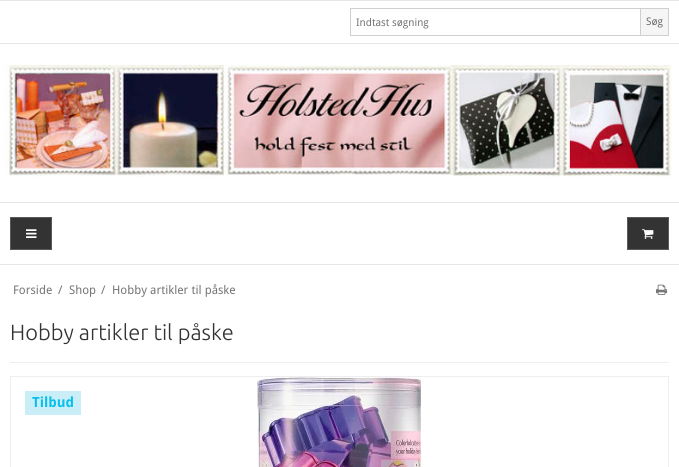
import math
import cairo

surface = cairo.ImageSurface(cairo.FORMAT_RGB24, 679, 467)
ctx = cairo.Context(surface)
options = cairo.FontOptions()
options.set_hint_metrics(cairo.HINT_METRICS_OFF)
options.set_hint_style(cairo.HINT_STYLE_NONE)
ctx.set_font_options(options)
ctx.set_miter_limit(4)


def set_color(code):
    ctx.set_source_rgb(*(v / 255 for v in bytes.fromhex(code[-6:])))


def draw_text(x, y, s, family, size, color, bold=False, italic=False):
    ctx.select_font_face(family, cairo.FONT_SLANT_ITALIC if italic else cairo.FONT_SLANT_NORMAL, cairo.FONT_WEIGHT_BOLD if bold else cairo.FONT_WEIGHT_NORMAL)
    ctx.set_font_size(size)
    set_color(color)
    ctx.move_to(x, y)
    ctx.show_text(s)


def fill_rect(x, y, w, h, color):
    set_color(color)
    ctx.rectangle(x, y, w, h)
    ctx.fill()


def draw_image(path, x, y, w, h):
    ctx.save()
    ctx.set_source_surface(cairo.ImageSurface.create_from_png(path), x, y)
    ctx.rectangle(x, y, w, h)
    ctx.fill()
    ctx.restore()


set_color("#ffffff")
ctx.paint()
fill_rect(0, 0, 679, 1, "#e6e6e6")
fill_rect(0, 43, 679, 1, "#e6e6e6")
fill_rect(350, 8, 291, 1, "#cfcfcf")
fill_rect(350, 35, 291, 1, "#cfcfcf")
fill_rect(350, 8, 1, 28, "#cfcfcf")
draw_text(356, 26, "Indtast søgning", "Droid Sans", 10.5, "#757575")
set_color("#f5f5f5")
ctx.rectangle(640.5, 8.5, 28, 27)
ctx.fill_preserve()
set_color("#cfcfcf")
ctx.set_line_width(1)
ctx.stroke()
draw_text(646, 25, "Søg", "Droid Sans", 10.5, "#6c6c6c")
draw_image("assets/img1.png", 4, 65, 668, 112)
fill_rect(0, 202, 679, 1, "#e6e6e6")
fill_rect(0, 264, 679, 1, "#e6e6e6")
set_color("#333333")
ctx.rectangle(10.5, 217.5, 41, 32)
ctx.fill_preserve()
set_color("#595959")
ctx.stroke()
draw_image("assets/img2.png", 26, 229, 11, 9)
set_color("#333333")
ctx.rectangle(627.5, 217.5, 41, 32)
ctx.fill_preserve()
set_color("#595959")
ctx.stroke()
draw_image("assets/img3.png", 642, 229, 12, 10)
draw_text(13, 294, "Forside", "Droid Sans", 11.9, "#757575")
draw_text(58, 294, "/", "Droid Sans", 11.9, "#757575")
draw_text(69, 294, "Shop", "Droid Sans", 11.9, "#757575")
draw_text(101, 294, "/", "Droid Sans", 11.9, "#757575")
draw_text(112, 294, "Hobby artikler til påske", "Droid Sans", 11.9, "#757575")
draw_image("assets/img4.png", 656, 284, 12, 11)
fill_rect(10, 362, 659, 1, "#eeeeee")
draw_text(10, 340, "Hobby artikler til påske", "Ubuntu Light", 21.9, "#333333")
ctx.rectangle(10.5, 376.5, 658, 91)
set_color("#eeeeee")
ctx.stroke()
fill_rect(25, 391, 56, 24, "#caeef7")
draw_text(32, 407, "Tilbud", "Droid Sans", 14, "#08bfed", bold=True)
draw_image("assets/img5.png", 257, 377, 164, 90)
surface.write_to_png("output.png")
